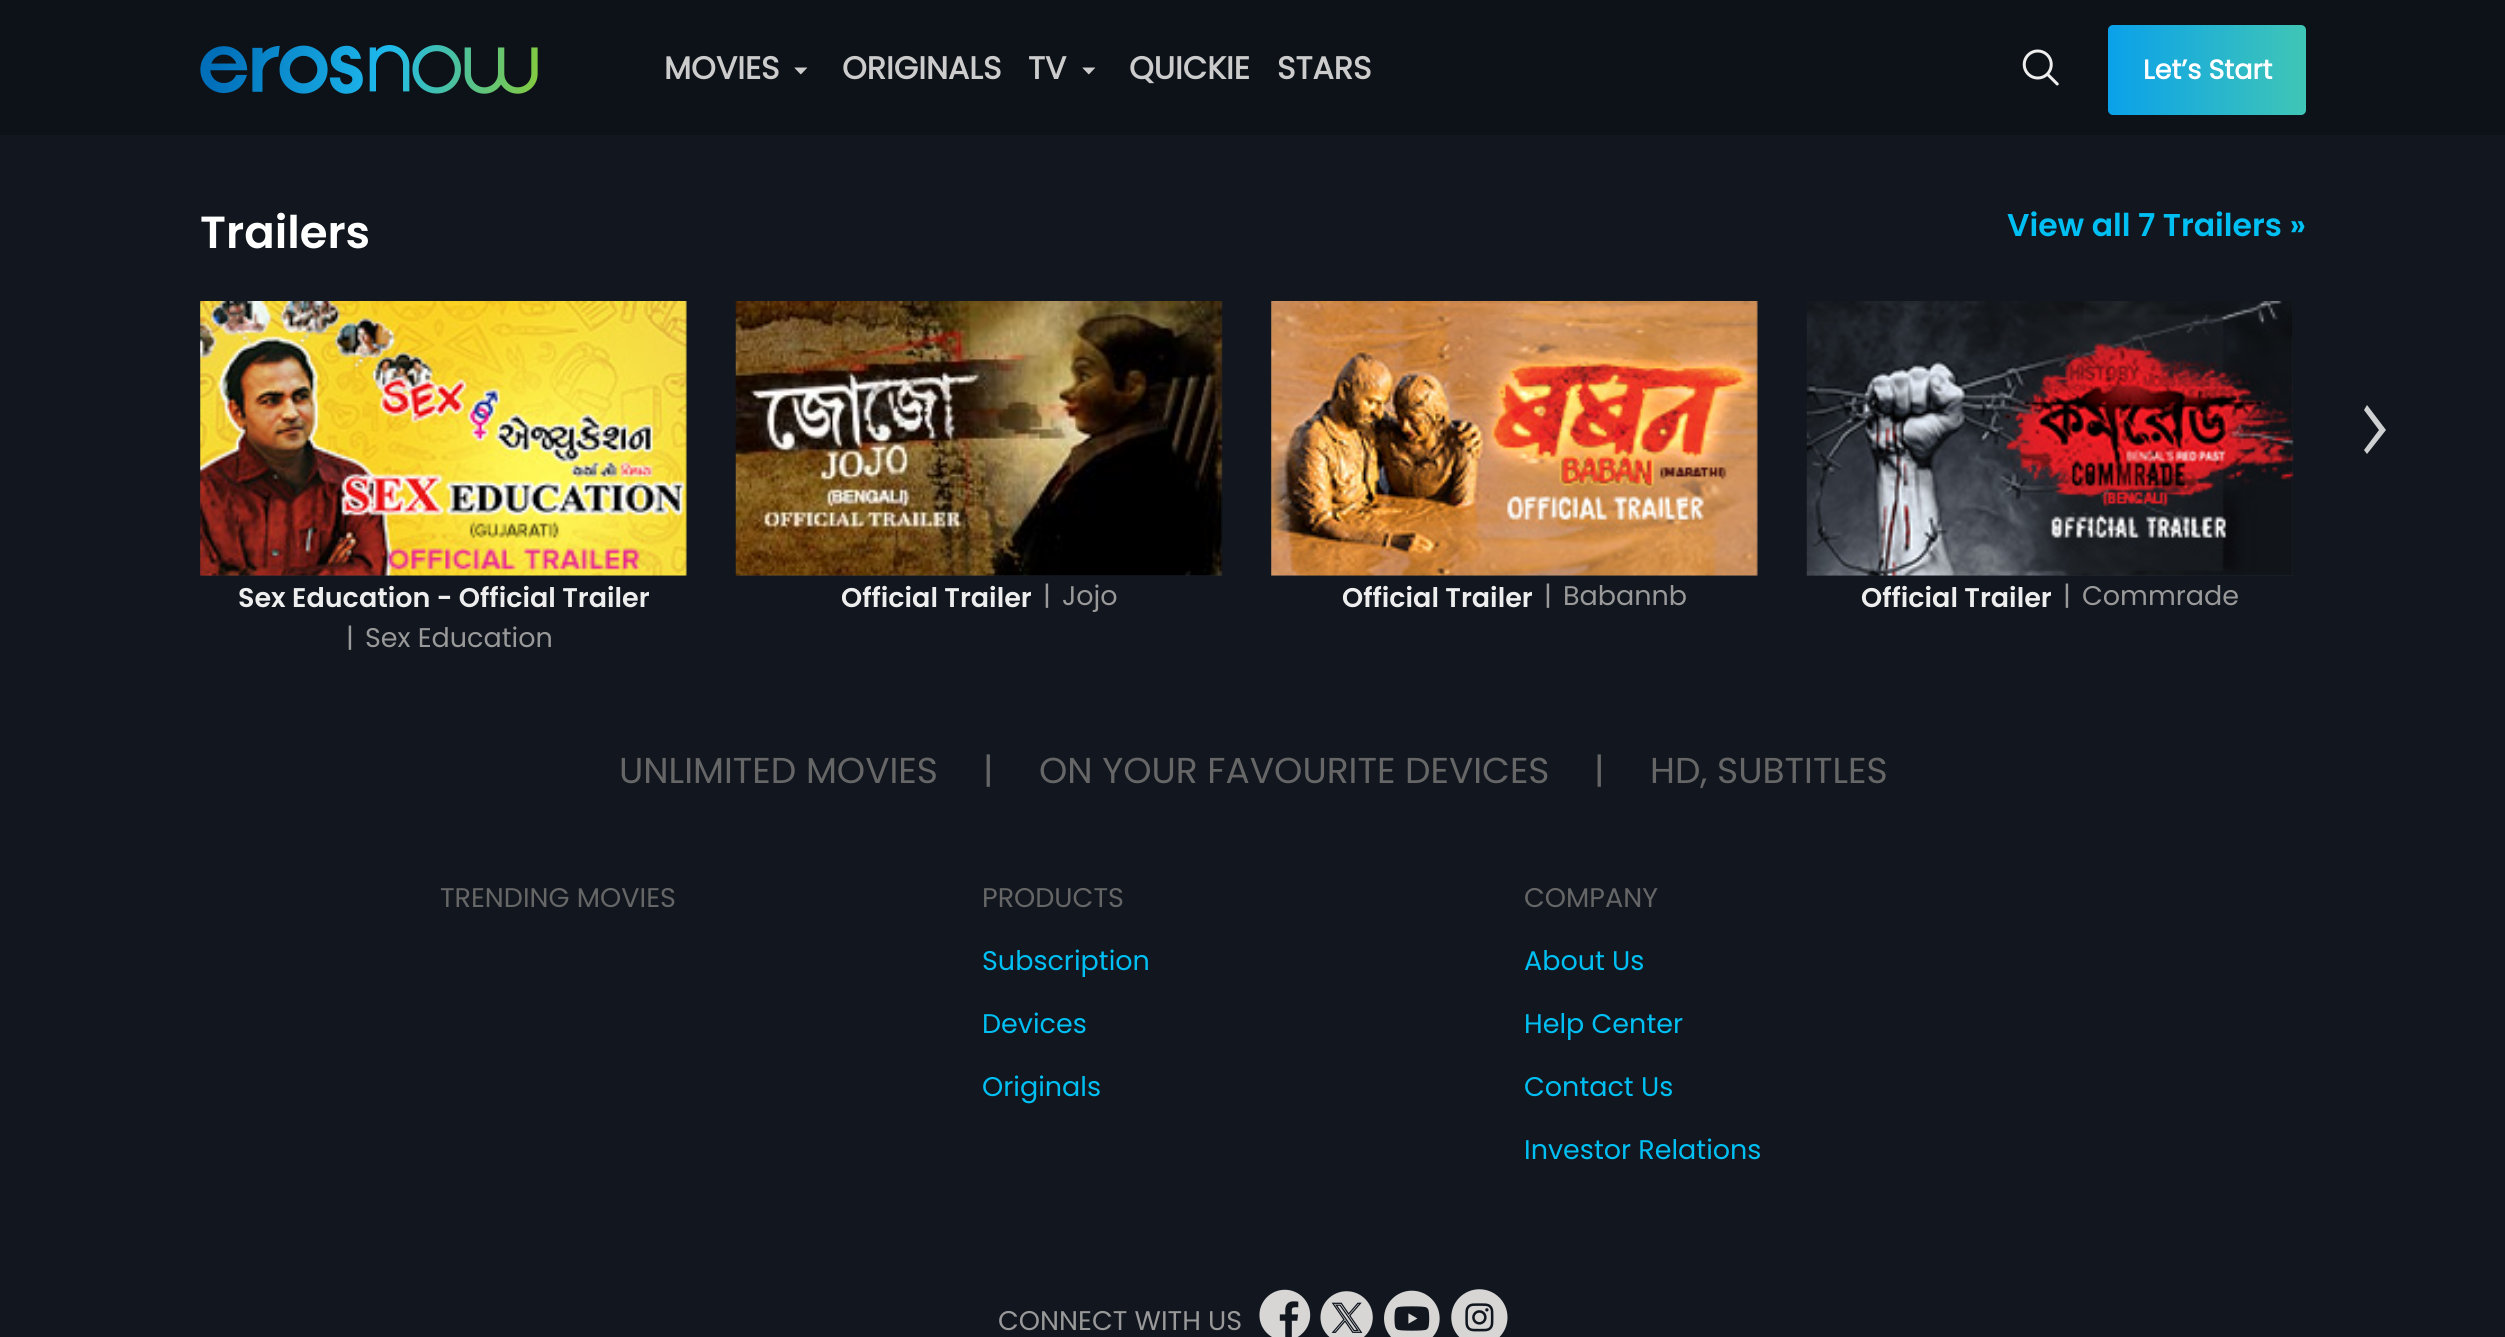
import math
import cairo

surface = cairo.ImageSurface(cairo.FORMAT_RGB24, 2505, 1337)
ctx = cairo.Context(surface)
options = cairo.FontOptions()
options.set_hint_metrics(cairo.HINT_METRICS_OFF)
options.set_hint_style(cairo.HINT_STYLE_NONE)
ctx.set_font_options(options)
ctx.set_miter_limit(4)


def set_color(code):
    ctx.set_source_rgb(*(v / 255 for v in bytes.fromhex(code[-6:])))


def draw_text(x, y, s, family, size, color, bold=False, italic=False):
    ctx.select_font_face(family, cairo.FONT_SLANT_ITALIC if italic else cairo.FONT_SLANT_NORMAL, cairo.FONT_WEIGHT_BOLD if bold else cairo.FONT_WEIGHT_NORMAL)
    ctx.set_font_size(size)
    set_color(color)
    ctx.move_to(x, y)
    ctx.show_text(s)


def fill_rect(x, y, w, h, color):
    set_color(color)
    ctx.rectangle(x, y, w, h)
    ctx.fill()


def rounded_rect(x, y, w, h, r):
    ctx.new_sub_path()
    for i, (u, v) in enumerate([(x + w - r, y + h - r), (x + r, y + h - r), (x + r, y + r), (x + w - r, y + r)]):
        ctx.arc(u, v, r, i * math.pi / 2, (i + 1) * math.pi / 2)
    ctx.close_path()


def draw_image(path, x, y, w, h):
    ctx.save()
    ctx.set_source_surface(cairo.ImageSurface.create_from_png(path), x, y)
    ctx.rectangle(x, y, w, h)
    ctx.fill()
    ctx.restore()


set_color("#11161f")
ctx.paint()
fill_rect(0, 0, 2505, 135, "#0d1118")
draw_image("assets/img1.png", 200, 45, 338, 49)
draw_text(664, 79, "MOVIES", "Poppins", 31.5, "#cccccc", bold=True)
draw_image("assets/img2.png", 794, 67, 14, 8)
draw_text(842, 79, "ORIGINALS", "Poppins", 31.5, "#cccccc", bold=True)
draw_text(1028, 79, "TV", "Poppins", 31.5, "#cccccc", bold=True)
draw_image("assets/img2.png", 1082, 67, 14, 8)
draw_text(1129, 79, "QUICKIE", "Poppins", 31.5, "#cccccc", bold=True)
draw_text(1277, 79, "STARS", "Poppins", 31.5, "#cccccc", bold=True)
draw_image("assets/img3.png", 2022, 49, 37, 37)
gradient = cairo.LinearGradient(2306, 70, 2108, 70)
gradient.add_color_stop_rgba(0, 0.251, 0.776, 0.714, 1)
gradient.add_color_stop_rgba(1, 0.039, 0.631, 0.918, 1)
ctx.set_source(gradient)
rounded_rect(2108, 25, 198, 90, 5)
ctx.fill()
draw_text(2143, 79, "Let’s Start", "Poppins", 27, "#ffffff", bold=True)
draw_text(200, 248, "Trailers", "Poppins SemiBold", 45, "#ffffff")
draw_text(2007, 236, "View all 7 Trailers »", "Poppins SemiBold", 31.5, "#00bff2")
set_color("#cfd0d2")
ctx.new_path()
ctx.move_to(2386, 430)
ctx.line_to(2367, 405)
ctx.line_to(2364, 410)
ctx.line_to(2379, 430)
ctx.line_to(2364, 450)
ctx.line_to(2367, 454)
ctx.close_path()
ctx.fill()
fill_rect(200, 302, 486, 274, "#1e2631")
draw_image("assets/img4.png", 200, 301, 487, 275)
draw_text(238, 607, "Sex Education - Official Trailer", "Poppins SemiBold", 27, "#eeeeee")
draw_text(346, 647, "|", "Poppins", 27, "#999999")
draw_text(365, 647, "Sex Education", "Poppins", 27, "#999999")
fill_rect(736, 302, 486, 274, "#1e2631")
draw_image("assets/img5.png", 735, 301, 488, 275)
ctx.save()
ctx.rectangle(842, 578, 189, 41)
ctx.clip()
draw_text(841, 607, "Official Trailer", "Poppins SemiBold", 27, "#eeeeee")
ctx.restore()
draw_text(1043, 605, "|", "Poppins", 27, "#999999")
draw_text(1062, 605, "Jojo", "Poppins", 27, "#999999")
fill_rect(1271, 302, 486, 274, "#1e2631")
draw_image("assets/img6.png", 1271, 301, 487, 275)
draw_text(1342, 607, "Official Trailer", "Poppins SemiBold", 27, "#eeeeee")
draw_text(1544, 605, "|", "Poppins", 27, "#999999")
draw_text(1563, 605, "Babannb", "Poppins", 27, "#999999")
fill_rect(1807, 302, 486, 274, "#1e2631")
draw_image("assets/img7.png", 1806, 301, 488, 275)
draw_text(1861, 607, "Official Trailer", "Poppins SemiBold", 27, "#eeeeee")
draw_text(2063, 605, "|", "Poppins", 27, "#999999")
draw_text(2082, 605, "Commrade", "Poppins", 27, "#999999")
draw_text(619, 783, "UNLIMITED MOVIES", "Poppins", 36, "#666666")
draw_text(983, 783, "|", "Poppins", 36, "#666666")
draw_text(1039, 783, "ON YOUR FAVOURITE DEVICES", "Poppins", 36, "#666666")
draw_text(1594, 783, "|", "Poppins", 36, "#666666")
draw_text(1650, 783, "HD, SUBTITLES", "Poppins", 36, "#666666")
draw_text(440, 907, "TRENDING MOVIES", "Poppins", 27, "#666666")
draw_text(982, 907, "PRODUCTS", "Poppins", 27, "#666666")
draw_text(982, 970, "Subscription", "Poppins", 27, "#00bff2")
draw_text(982, 1033, "Devices", "Poppins", 27, "#00bff2")
draw_text(982, 1096, "Originals", "Poppins", 27, "#00bff2")
draw_text(1524, 907, "COMPANY", "Poppins", 27, "#666666")
draw_text(1524, 970, "About Us", "Poppins", 27, "#00bff2")
draw_text(1524, 1033, "Help Center", "Poppins", 27, "#00bff2")
draw_text(1524, 1096, "Contact Us", "Poppins", 27, "#00bff2")
draw_text(1524, 1159, "Investor Relations", "Poppins", 27, "#00bff2")
draw_text(998, 1330, "CONNECT WITH US", "Poppins", 27, "#999999")
draw_image("assets/img8.png", 1259, 1289, 52, 48)
draw_image("assets/img9.png", 1320, 1291, 53, 46)
draw_image("assets/img10.png", 1384, 1290, 56, 47)
draw_image("assets/img11.png", 1451, 1289, 57, 48)
surface.write_to_png("output.png")
